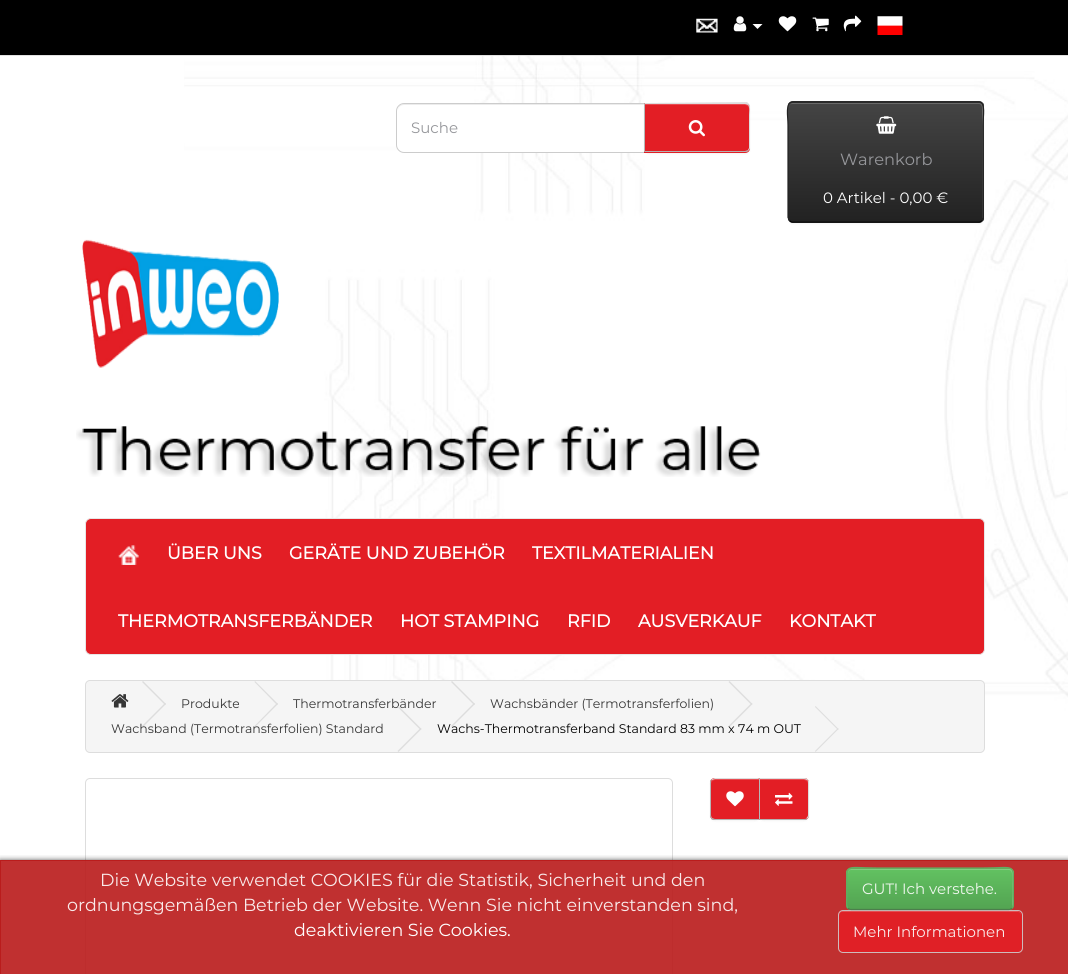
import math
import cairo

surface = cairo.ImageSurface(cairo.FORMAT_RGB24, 1068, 974)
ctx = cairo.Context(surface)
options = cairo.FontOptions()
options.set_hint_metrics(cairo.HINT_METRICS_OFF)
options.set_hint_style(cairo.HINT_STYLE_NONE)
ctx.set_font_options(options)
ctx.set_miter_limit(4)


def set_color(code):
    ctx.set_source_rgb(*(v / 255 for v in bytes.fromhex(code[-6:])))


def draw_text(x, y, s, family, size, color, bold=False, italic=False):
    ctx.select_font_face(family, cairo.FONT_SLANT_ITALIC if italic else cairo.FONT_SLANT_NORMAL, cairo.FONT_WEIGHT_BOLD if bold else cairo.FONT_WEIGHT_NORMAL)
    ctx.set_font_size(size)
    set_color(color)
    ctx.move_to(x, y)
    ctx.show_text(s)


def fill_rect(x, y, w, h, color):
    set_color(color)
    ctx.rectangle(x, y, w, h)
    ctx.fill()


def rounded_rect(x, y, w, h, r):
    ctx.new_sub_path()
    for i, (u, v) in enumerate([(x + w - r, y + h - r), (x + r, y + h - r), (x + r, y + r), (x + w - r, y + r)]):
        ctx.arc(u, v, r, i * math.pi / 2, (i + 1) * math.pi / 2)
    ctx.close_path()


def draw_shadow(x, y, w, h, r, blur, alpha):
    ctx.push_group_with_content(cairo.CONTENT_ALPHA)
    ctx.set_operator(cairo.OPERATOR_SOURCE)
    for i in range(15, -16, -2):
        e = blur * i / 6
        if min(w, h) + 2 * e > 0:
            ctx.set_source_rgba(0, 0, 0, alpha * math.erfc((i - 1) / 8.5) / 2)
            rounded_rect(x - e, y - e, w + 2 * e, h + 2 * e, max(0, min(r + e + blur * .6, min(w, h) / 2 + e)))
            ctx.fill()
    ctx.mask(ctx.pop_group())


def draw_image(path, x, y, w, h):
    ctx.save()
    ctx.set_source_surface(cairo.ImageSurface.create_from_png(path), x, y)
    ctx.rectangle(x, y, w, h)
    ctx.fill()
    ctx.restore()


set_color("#ffffff")
ctx.paint()
draw_image("assets/img1.png", 184, 56, 884, 664)
fill_rect(0, 0, 1068, 55, "#000000")
fill_rect(0, 55, 1068, 1, "#e2e2e2")
draw_image("assets/img2.png", 696, 18, 22, 15)
draw_image("assets/img3.png", 733, 16, 14, 16)
set_color("#ffffff")
ctx.new_path()
ctx.move_to(752.5, 24)
ctx.line_to(762.5, 24)
ctx.line_to(757.5, 29)
ctx.close_path()
ctx.fill()
draw_image("assets/img4.png", 778, 16, 19, 16)
draw_image("assets/img5.png", 812, 17, 17, 15)
draw_image("assets/img6.png", 843, 15, 19, 17)
draw_image("assets/img7.png", 877, 16, 26, 19)
ctx.new_path()
ctx.move_to(404, 103)
ctx.line_to(645, 103)
ctx.line_to(645, 153)
ctx.line_to(404, 153)
ctx.curve_to(399.5, 153, 396, 149.5, 396, 145)
ctx.line_to(396, 111)
ctx.curve_to(396, 106.5, 399.5, 103, 404, 103)
ctx.close_path()
ctx.fill()
set_color("#ececec")
ctx.new_path()
ctx.move_to(404, 105)
ctx.line_to(644, 105)
ctx.line_to(644, 104)
ctx.line_to(403, 104)
ctx.curve_to(399, 105, 398, 108, 398, 111)
ctx.curve_to(398, 108, 400, 105, 404, 105)
ctx.close_path()
ctx.fill()
ctx.new_path()
ctx.move_to(404, 103.5)
ctx.line_to(644.5, 103.5)
ctx.line_to(644.5, 152.5)
ctx.line_to(404, 152.5)
ctx.curve_to(400, 152.5, 396.5, 149, 396.5, 145)
ctx.line_to(396.5, 111)
ctx.curve_to(396.5, 107, 400, 103.5, 404, 103.5)
ctx.close_path()
set_color("#cccccc")
ctx.set_line_width(1)
ctx.stroke()
draw_text(411, 133, "Suche", "Montserrat Thin", 15, "#96979b")
set_color("#000000")
draw_shadow(644, 104, 106, 50, 5, 1, 0.05)
set_color("#e31e25")
ctx.new_path()
ctx.move_to(644, 103)
ctx.line_to(745, 103)
ctx.curve_to(748, 103, 750, 105, 750, 108)
ctx.line_to(750, 148)
ctx.curve_to(750, 151, 748, 153, 745, 153)
ctx.line_to(644, 153)
ctx.close_path()
ctx.fill()
set_color("#e94b51")
ctx.new_path()
ctx.move_to(645, 105)
ctx.line_to(745, 105)
ctx.curve_to(747, 105, 749, 107, 749, 109)
ctx.line_to(749, 108)
ctx.curve_to(749, 106, 747, 104, 745, 104)
ctx.line_to(645, 104)
ctx.close_path()
ctx.fill()
set_color("#dddddd")
ctx.new_path()
ctx.move_to(644, 103)
ctx.line_to(747, 102)
ctx.line_to(749, 104)
ctx.line_to(748, 105)
ctx.line_to(745, 104)
ctx.line_to(645, 104)
ctx.close_path()
ctx.fill()
ctx.new_path()
ctx.move_to(750, 148)
ctx.line_to(750, 108)
ctx.curve_to(750, 106, 750, 105, 749, 104)
ctx.line_to(748, 105)
ctx.curve_to(750, 107, 749, 113, 749, 115)
ctx.line_to(749, 148)
ctx.line_to(748, 150)
ctx.line_to(748, 151)
ctx.curve_to(749, 150, 750, 149, 750, 148)
ctx.close_path()
ctx.fill()
set_color("#b3b3b3")
ctx.new_path()
ctx.move_to(748, 151)
ctx.curve_to(748, 152, 746, 152, 745, 152)
ctx.line_to(644, 152)
ctx.line_to(645, 151)
ctx.line_to(745, 151)
ctx.line_to(748, 150)
ctx.close_path()
ctx.fill()
set_color("#b7b7b7")
ctx.new_path()
ctx.move_to(645, 104)
ctx.line_to(645, 151)
ctx.line_to(644, 152)
ctx.line_to(644, 103)
ctx.close_path()
ctx.fill()
draw_image("assets/img8.png", 688, 120, 17, 17)
set_color("#000000")
draw_shadow(788, 103, 196, 121, 5, 1, 0.05)
set_color("#363636")
rounded_rect(788, 101, 196, 122, 5)
ctx.fill()
ctx.save()
rounded_rect(788, 101, 196, 122, 5)
ctx.clip()
gradient = cairo.LinearGradient(886, 103, 886, 221)
gradient.add_color_stop_rgba(0, 0.267, 0.267, 0.267, 1)
gradient.add_color_stop_rgba(1, 0.133, 0.133, 0.133, 1)
ctx.set_source(gradient)
ctx.rectangle(788, 103, 196, 118)
ctx.fill()
ctx.restore()
ctx.set_source_rgba(1, 1, 1, 0.2)
ctx.new_path()
ctx.move_to(792, 104)
ctx.line_to(979, 104)
ctx.curve_to(981, 104, 982, 106, 982, 108)
ctx.line_to(982, 220)
ctx.curve_to(983, 219, 983, 218, 983, 217)
ctx.line_to(983, 107)
ctx.curve_to(983, 105, 981, 103, 979, 103)
ctx.line_to(793, 103)
ctx.curve_to(791, 103, 789, 105, 789, 107)
ctx.line_to(789, 108)
ctx.curve_to(789, 105, 790, 104, 792, 104)
ctx.close_path()
ctx.fill()
ctx.new_path()
ctx.move_to(982, 220.5)
ctx.curve_to(981, 221.5, 980, 222, 979, 222)
ctx.line_to(792.5, 222)
ctx.curve_to(791.5, 222, 790, 221.5, 789.5, 220.5)
set_color("#000000")
ctx.set_line_width(1.2)
ctx.stroke()
ctx.new_path()
ctx.move_to(789.5, 220.5)
ctx.line_to(788, 217.5)
ctx.line_to(788, 125)
ctx.curve_to(788, 116.5, 785, 102, 792.5, 102)
ctx.line_to(979, 102)
ctx.curve_to(986, 102, 983, 116.5, 983, 125)
ctx.line_to(983, 217.5)
ctx.line_to(982, 220.5)
set_color("#222222")
ctx.stroke()
draw_image("assets/img9.png", 876, 116, 21, 18)
draw_text(840, 165, "Warenkorb", "Montserrat Thin", 16.25, "#96979b")
draw_text(823, 203, "0 Artikel - 0,00 €", "Montserrat Thin", 15, "#ffffff")
draw_image("assets/img10.png", 82, 239, 197, 129)
draw_image("assets/img11.png", 76, 426, 685, 51)
set_color("#e31e25")
rounded_rect(85.5, 518.5, 899, 136, 5.5)
ctx.fill_preserve()
set_color("#e7e7e7")
ctx.set_line_width(1)
ctx.stroke()
draw_image("assets/img12.png", 118, 545, 21, 20)
draw_text(167, 559, "ÜBER UNS", "Montserrat", 17.5, "#ffffff", bold=True)
draw_text(289, 559, "GERÄTE UND ZUBEHÖR", "Montserrat", 17.5, "#ffffff", bold=True)
draw_text(532, 559, "TEXTILMATERIALIEN", "Montserrat", 17.5, "#ffffff", bold=True)
draw_text(118, 627, "THERMOTRANSFERBÄNDER", "Montserrat", 17.5, "#ffffff", bold=True)
draw_text(400, 627, "HOT STAMPING", "Montserrat", 17.5, "#ffffff", bold=True)
draw_text(567, 627, "RFID", "Montserrat", 17.5, "#ffffff", bold=True)
draw_text(638, 627, "AUSVERKAUF", "Montserrat", 17.5, "#ffffff", bold=True)
draw_text(789, 627, "KONTAKT", "Montserrat", 17.5, "#ffffff", bold=True)
set_color("#f5f5f5")
rounded_rect(85.5, 680.5, 899, 72, 4.5)
ctx.fill_preserve()
set_color("#dddddd")
ctx.stroke()
draw_image("assets/img13.png", 111, 694, 18, 14)
ctx.new_path()
ctx.move_to(142, 682)
ctx.line_to(143, 681)
ctx.line_to(166, 704)
ctx.line_to(165, 705)
ctx.close_path()
ctx.fill()
ctx.new_path()
ctx.move_to(142, 726)
ctx.line_to(165, 703)
ctx.line_to(166, 704)
ctx.line_to(143, 727)
ctx.close_path()
ctx.fill()
draw_text(181, 708, "Produkte", "Montserrat Thin", 12.5, "#363636")
set_color("#dddddd")
ctx.new_path()
ctx.move_to(254.5, 682)
ctx.line_to(255, 681)
ctx.line_to(278, 704)
ctx.line_to(277, 705)
ctx.close_path()
ctx.fill()
ctx.new_path()
ctx.move_to(254.5, 726)
ctx.line_to(277, 703)
ctx.line_to(278, 704)
ctx.line_to(255, 727)
ctx.close_path()
ctx.fill()
draw_text(293, 708, "Thermotransferbänder", "Montserrat Thin", 12.5, "#363636")
set_color("#dddddd")
ctx.new_path()
ctx.move_to(451, 682)
ctx.line_to(452, 681)
ctx.line_to(475, 704)
ctx.line_to(474, 705)
ctx.close_path()
ctx.fill()
ctx.new_path()
ctx.move_to(451, 726)
ctx.line_to(474, 703)
ctx.line_to(475, 704)
ctx.line_to(452, 727)
ctx.close_path()
ctx.fill()
draw_text(490, 708, "Wachsbänder (Termotransferfolien)", "Montserrat Thin", 12.5, "#363636")
set_color("#dddddd")
ctx.new_path()
ctx.move_to(728.5, 682)
ctx.line_to(729.5, 681)
ctx.line_to(752.5, 704)
ctx.line_to(751.5, 705)
ctx.close_path()
ctx.fill()
ctx.new_path()
ctx.move_to(728.5, 726)
ctx.line_to(751.5, 703)
ctx.line_to(752.5, 704)
ctx.line_to(729.5, 727)
ctx.close_path()
ctx.fill()
draw_text(111, 733, "Wachsband (Termotransferfolien) Standard", "Montserrat Thin", 12.5, "#363636")
set_color("#dddddd")
ctx.new_path()
ctx.move_to(397.5, 707)
ctx.line_to(398.5, 706)
ctx.line_to(421.5, 729)
ctx.line_to(420.5, 730)
ctx.close_path()
ctx.fill()
ctx.new_path()
ctx.move_to(397.5, 751)
ctx.line_to(420.5, 728)
ctx.line_to(421.5, 729)
ctx.line_to(398.5, 752)
ctx.close_path()
ctx.fill()
draw_text(437, 733, "Wachs-Thermotransferband Standard 83 mm x 74 m OUT", "Montserrat Thin", 12.5, "#000000")
set_color("#dddddd")
ctx.new_path()
ctx.move_to(815, 707)
ctx.line_to(815.5, 706)
ctx.line_to(838.5, 729)
ctx.line_to(838, 730)
ctx.close_path()
ctx.fill()
ctx.new_path()
ctx.move_to(815, 751)
ctx.line_to(838, 728)
ctx.line_to(838.5, 729)
ctx.line_to(815.5, 752)
ctx.close_path()
ctx.fill()
rounded_rect(85.5, 778.5, 587, 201, 4.5)
ctx.stroke()
set_color("#000000")
draw_shadow(710, 779, 50, 42, 5, 1, 0.05)
set_color("#e31e25")
ctx.new_path()
ctx.move_to(715, 778)
ctx.line_to(760, 778)
ctx.line_to(760, 820)
ctx.line_to(715, 820)
ctx.curve_to(712, 820, 710, 818, 710, 815)
ctx.line_to(710, 783)
ctx.curve_to(710, 780, 712, 778, 715, 778)
ctx.close_path()
ctx.fill()
set_color("#e94b51")
ctx.new_path()
ctx.move_to(715, 780)
ctx.line_to(759, 780)
ctx.line_to(759, 779)
ctx.line_to(715, 779)
ctx.curve_to(713, 779, 711, 781, 711, 783)
ctx.line_to(711, 784)
ctx.curve_to(711, 782, 713, 780, 715, 780)
ctx.close_path()
ctx.fill()
set_color("#dddddd")
ctx.new_path()
ctx.move_to(715, 778)
ctx.line_to(712, 779)
ctx.line_to(712, 780)
ctx.line_to(715, 779)
ctx.line_to(758, 779)
ctx.line_to(760, 778)
ctx.close_path()
ctx.fill()
set_color("#b3b3b3")
ctx.new_path()
ctx.move_to(760, 820)
ctx.line_to(759, 819)
ctx.line_to(715, 819)
ctx.curve_to(714, 819, 713, 818, 712, 818)
ctx.line_to(711, 819)
ctx.curve_to(712, 820, 714, 820, 715, 820)
ctx.close_path()
ctx.fill()
set_color("#b7b7b7")
ctx.new_path()
ctx.move_to(710, 782)
ctx.line_to(710, 815)
ctx.curve_to(710, 816.5, 710.5, 818, 711.5, 818.5)
ctx.line_to(712, 818)
ctx.curve_to(711.5, 817, 711, 816, 711, 815)
ctx.line_to(711, 782)
ctx.curve_to(711, 781, 711.5, 780, 712, 780)
ctx.line_to(711.5, 779)
ctx.curve_to(710.5, 780, 710, 781, 710, 782)
ctx.close_path()
ctx.fill()
draw_image("assets/img14.png", 726, 791, 18, 16)
set_color("#000000")
draw_shadow(759, 779, 50, 42, 5, 1, 0.05)
set_color("#e31e25")
ctx.new_path()
ctx.move_to(759, 778)
ctx.line_to(804, 778)
ctx.curve_to(807, 778, 809, 780, 809, 783)
ctx.line_to(809, 815)
ctx.curve_to(809, 818, 807, 820, 804, 820)
ctx.line_to(759, 820)
ctx.close_path()
ctx.fill()
set_color("#e94b51")
ctx.new_path()
ctx.move_to(760, 780)
ctx.line_to(804, 780)
ctx.curve_to(806, 780, 808, 782, 808, 784)
ctx.line_to(808, 783)
ctx.curve_to(808, 781, 806, 779, 804, 779)
ctx.line_to(760, 779)
ctx.close_path()
ctx.fill()
set_color("#dddddd")
ctx.new_path()
ctx.move_to(807, 779)
ctx.curve_to(806, 778, 805, 778, 804, 778)
ctx.line_to(759, 778)
ctx.line_to(760, 779)
ctx.line_to(804, 779)
ctx.line_to(807, 780)
ctx.close_path()
ctx.fill()
ctx.new_path()
ctx.move_to(807.5, 779)
ctx.line_to(809, 781)
ctx.line_to(809, 816.5)
ctx.line_to(807.5, 818.5)
ctx.line_to(806.5, 818)
ctx.curve_to(807.5, 817, 808, 816, 808, 815)
ctx.line_to(808, 782)
ctx.curve_to(808, 781, 807.5, 780, 806.5, 779.5)
ctx.close_path()
ctx.fill()
set_color("#b3b3b3")
ctx.new_path()
ctx.move_to(759, 820)
ctx.line_to(804, 820)
ctx.curve_to(805, 820, 807, 820, 807, 819)
ctx.line_to(807, 818)
ctx.curve_to(806, 819, 805, 819, 804, 819)
ctx.line_to(760, 819)
ctx.close_path()
ctx.fill()
set_color("#b7b7b7")
ctx.new_path()
ctx.move_to(759, 778)
ctx.line_to(759, 820)
ctx.line_to(760, 819)
ctx.line_to(760, 779)
ctx.close_path()
ctx.fill()
draw_image("assets/img15.png", 775, 792, 18, 14)
ctx.save()
ctx.rectangle(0, 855, 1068, 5)
ctx.clip()
set_color("#000000")
draw_shadow(0, 861, 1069, 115, 0, 3, 0.9)
ctx.restore()
ctx.set_source_rgba(0.729, 0.102, 0.102, 0.9)
ctx.rectangle(0, 860, 1068, 114)
ctx.fill()
ctx.rectangle(0.5, 860.5, 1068, 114)
ctx.stroke()
draw_text(100, 886, "Die Website verwendet COOKIES für die Statistik, Sicherheit und den", "Montserrat Thin", 17.5, "#f9eaea")
draw_text(67, 911, "ordnungsgemäßen Betrieb der Website. Wenn Sie nicht einverstanden sind,", "Montserrat Thin", 17.5, "#f9eaea")
draw_text(294, 936, "deaktivieren Sie Cookies.", "Montserrat Thin", 17.5, "#ffffff")
ctx.set_source_rgba(0.357, 0.718, 0.357, 0.9)
rounded_rect(846, 868, 168, 42, 5)
ctx.fill()
ctx.save()
rounded_rect(846, 868, 168, 42, 5)
ctx.clip()
gradient = cairo.LinearGradient(930, 869, 930, 909)
gradient.add_color_stop_rgba(0, 0.384, 0.769, 0.384, 0.9)
gradient.add_color_stop_rgba(1, 0.318, 0.639, 0.318, 0.9)
ctx.set_source(gradient)
ctx.rectangle(846, 869, 168, 40)
ctx.fill()
ctx.restore()
ctx.set_source_rgba(1, 1, 1, 0.2)
ctx.new_path()
ctx.move_to(851, 870)
ctx.line_to(1009, 870)
ctx.curve_to(1014, 870, 1012, 883, 1012, 885)
ctx.line_to(1012, 908)
ctx.curve_to(1012, 907, 1013, 906, 1013, 905)
ctx.line_to(1013, 873)
ctx.curve_to(1013, 871, 1011, 869, 1009, 869)
ctx.line_to(852, 869)
ctx.curve_to(850, 869, 848, 871, 848, 873)
ctx.line_to(848, 874)
ctx.curve_to(848, 872, 849, 870, 851, 870)
ctx.close_path()
ctx.fill()
ctx.set_source_rgba(0.89, 0.118, 0.145, 0.9)
rounded_rect(838, 910, 185, 43, 5)
ctx.fill()
set_color("#e64d52")
ctx.new_path()
ctx.move_to(842, 912)
ctx.line_to(1018, 912)
ctx.curve_to(1020, 912, 1021, 914, 1021, 916)
ctx.line_to(1021, 915)
ctx.curve_to(1021, 913, 1019, 911, 1017, 911)
ctx.line_to(843, 911)
ctx.curve_to(841, 911, 839, 913, 839, 915)
ctx.line_to(839, 916)
ctx.curve_to(839, 914, 840, 912, 842, 912)
ctx.close_path()
ctx.fill()
rounded_rect(838.5, 910.5, 184, 42, 4.5)
ctx.set_source_rgba(0.8, 0.8, 0.8, 0.9)
ctx.stroke()
ctx.new_path()
ctx.move_to(1012, 908)
ctx.curve_to(1011, 909, 1010, 909.5, 1009, 909.5)
ctx.line_to(851, 909.5)
ctx.curve_to(850, 909.5, 849, 909, 848, 908)
set_color("#4c7e4c")
ctx.set_line_width(1.2)
ctx.stroke()
ctx.new_path()
ctx.move_to(848, 908)
ctx.curve_to(845.5, 905.5, 847, 897, 847, 894)
ctx.curve_to(847, 861.5, 841.5, 868, 877.5, 868)
ctx.line_to(982.5, 868)
ctx.curve_to(1018.5, 868, 1013, 861.5, 1013, 894)
ctx.curve_to(1013, 897, 1014.5, 905.5, 1012, 908)
set_color("#62ac62")
ctx.stroke()
draw_text(862, 894, "GUT! Ich verstehe.", "Montserrat Thin", 15, "#eff7ee")
draw_text(853, 937, "Mehr Informationen", "Montserrat Thin", 15, "#f9eaea")
surface.write_to_png("output.png")
